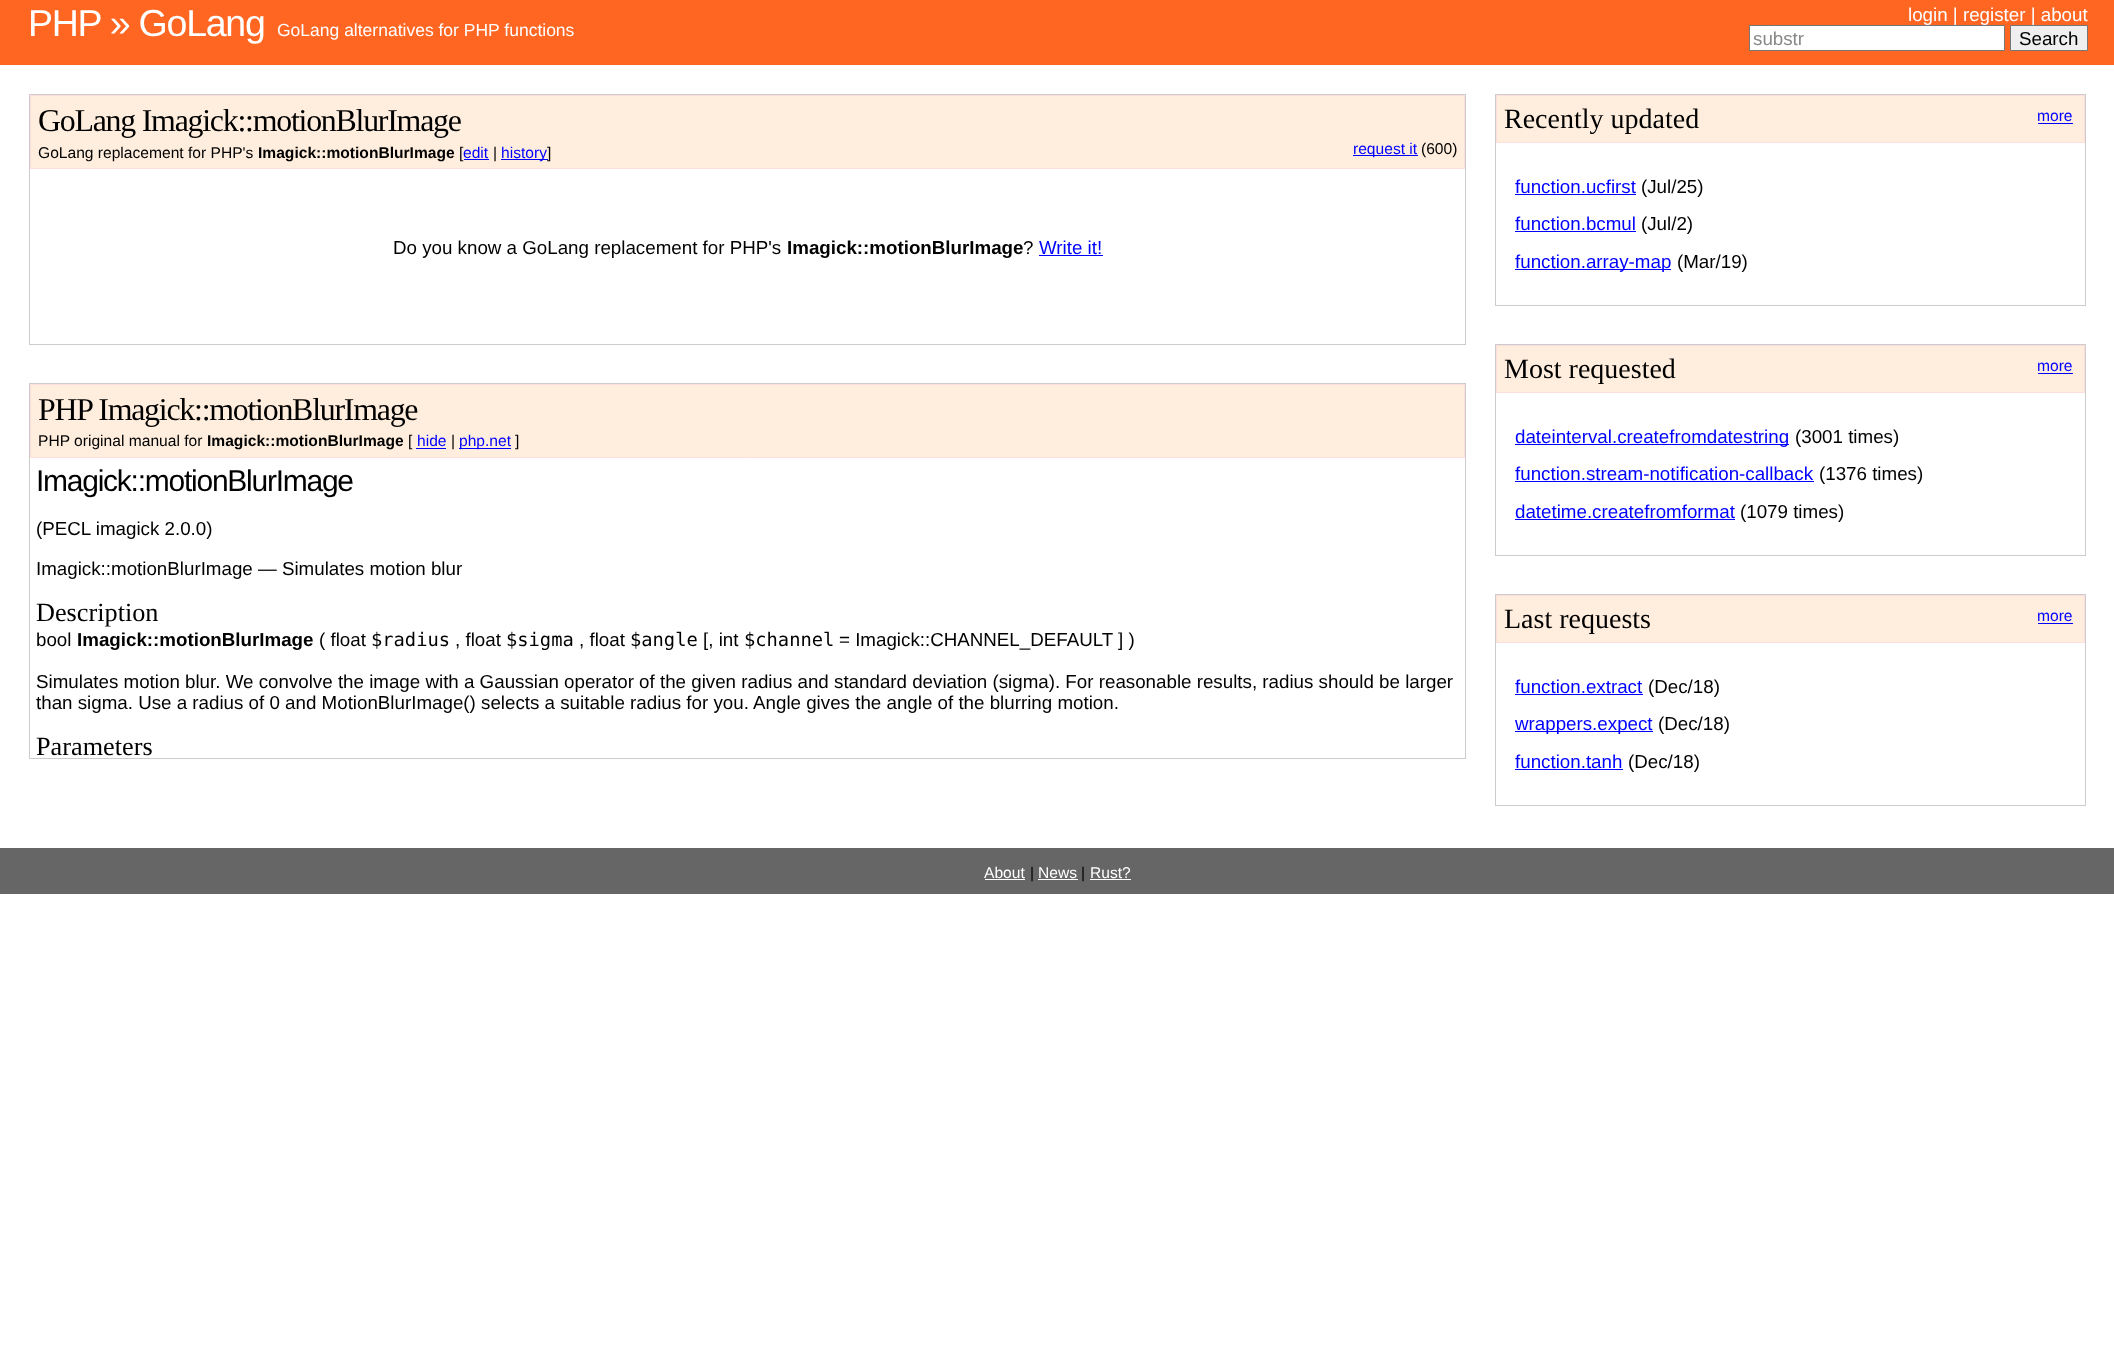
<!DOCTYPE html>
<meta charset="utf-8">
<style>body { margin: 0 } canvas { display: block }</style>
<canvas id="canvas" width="2114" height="1371"></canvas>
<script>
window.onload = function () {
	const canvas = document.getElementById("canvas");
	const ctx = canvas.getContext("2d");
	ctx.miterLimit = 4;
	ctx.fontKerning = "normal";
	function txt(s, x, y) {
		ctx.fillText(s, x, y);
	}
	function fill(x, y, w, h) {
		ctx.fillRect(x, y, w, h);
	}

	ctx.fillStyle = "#FFFFFF";
	fill(0, 0, 2114, 1371);
	ctx.fillStyle = "#FF6622";
	fill(0, 0, 2114, 65);
	ctx.fillStyle = "#FFFFFF";
	ctx.beginPath();
	ctx.rect(1749.5, 25.5, 255, 25);
	ctx.fill();
	ctx.strokeStyle = "#777777";
	ctx.stroke();
	ctx.fillStyle = "#EFEFEF";
	ctx.beginPath();
	ctx.rect(2010.5, 25.5, 77, 25);
	ctx.fill();
	ctx.stroke();
	ctx.strokeStyle = "#CCCCCC";
	ctx.strokeRect(29.5, 94.5, 1436, 250);
	ctx.fillStyle = "#FFEEDD";
	ctx.beginPath();
	ctx.rect(30.5, 95.5, 1434, 73);
	ctx.fill();
	ctx.strokeStyle = "#FFDDDD";
	ctx.stroke();
	ctx.fillStyle = "#0000FF";
	fill(464, 159, 25, 1);
	fill(501, 159, 47, 1);
	fill(1353, 155, 65, 1);
	fill(1039, 255, 64, 1);
	ctx.strokeStyle = "#CCCCCC";
	ctx.strokeRect(29.5, 383.5, 1436, 375);
	ctx.fillStyle = "#FFEEDD";
	ctx.beginPath();
	ctx.rect(30.5, 384.5, 1434, 73);
	ctx.fill();
	ctx.strokeStyle = "#FFDDDD";
	ctx.stroke();
	ctx.fillStyle = "#0000FF";
	fill(416, 448, 30, 1);
	fill(459, 448, 52, 1);
	ctx.strokeStyle = "#CCCCCC";
	ctx.strokeRect(1495.5, 94.5, 590, 211);
	ctx.fillStyle = "#FFEEDD";
	ctx.beginPath();
	ctx.rect(1496.5, 95.5, 588, 47);
	ctx.fill();
	ctx.strokeStyle = "#FFDDDD";
	ctx.stroke();
	ctx.fillStyle = "#0000FF";
	fill(2038, 123, 35, 1);
	fill(1515, 194, 121, 1);
	fill(1515, 231, 121, 1);
	fill(1515, 269, 156, 1);
	ctx.strokeStyle = "#CCCCCC";
	ctx.strokeRect(1495.5, 344.5, 590, 211);
	ctx.fillStyle = "#FFEEDD";
	ctx.beginPath();
	ctx.rect(1496.5, 345.5, 588, 47);
	ctx.fill();
	ctx.strokeStyle = "#FFDDDD";
	ctx.stroke();
	ctx.fillStyle = "#0000FF";
	fill(2038, 373, 35, 1);
	fill(1515, 444, 274, 1);
	fill(1515, 481, 299, 1);
	fill(1515, 519, 220, 1);
	ctx.strokeStyle = "#CCCCCC";
	ctx.strokeRect(1495.5, 594.5, 590, 211);
	ctx.fillStyle = "#FFEEDD";
	ctx.beginPath();
	ctx.rect(1496.5, 595.5, 588, 47);
	ctx.fill();
	ctx.strokeStyle = "#FFDDDD";
	ctx.stroke();
	ctx.fillStyle = "#0000FF";
	fill(2038, 623, 35, 1);
	fill(1515, 694, 128, 1);
	fill(1515, 731, 138, 1);
	fill(1515, 769, 108, 1);
	ctx.fillStyle = "#666666";
	fill(0, 848, 2114, 46);
	ctx.fillStyle = "#FFFFFF";
	fill(985, 879, 40, 1);
	fill(1038, 879, 40, 1);
	fill(1090, 879, 41, 1);
	ctx.letterSpacing = "-1.25px";
	ctx.font = "37.5px Liberation Sans";
	txt("PHP » GoLang", 28, 36);
	ctx.letterSpacing = "0px";
	ctx.font = "17.5px Liberation Sans";
	txt("GoLang alternatives for PHP functions", 277, 36);
	ctx.font = "18.75px Liberation Sans";
	txt("login | register | about", 1908, 21);
	ctx.fillStyle = "#888888";
	txt("substr", 1753, 45);
	ctx.fillStyle = "#000000";
	txt("Search", 2019, 45);
	ctx.letterSpacing = "-1.25px";
	ctx.font = "31.9px Liberation Serif";
	txt("GoLang Imagick::motionBlurImage", 38, 131);
	ctx.letterSpacing = "0px";
	ctx.font = "15.6px Liberation Sans";
	txt("GoLang replacement for PHP's", 38, 158);
	ctx.font = "bold 15.6px Liberation Sans";
	txt("Imagick::motionBlurImage", 258, 158);
	ctx.font = "15.6px Liberation Sans";
	txt("[", 459, 158);
	ctx.fillStyle = "#0000FF";
	txt("edit", 463, 158);
	ctx.fillStyle = "#000000";
	txt("|", 493, 158);
	ctx.fillStyle = "#0000FF";
	txt("history", 501, 158);
	ctx.fillStyle = "#000000";
	txt("]", 547, 158);
	ctx.fillStyle = "#0000FF";
	txt("request it", 1353, 154);
	ctx.fillStyle = "#000000";
	txt("(600)", 1421, 154);
	ctx.font = "18.75px Liberation Sans";
	txt("Do you know a GoLang replacement for PHP's", 393, 254);
	ctx.font = "bold 18.75px Liberation Sans";
	txt("Imagick::motionBlurImage", 787, 254);
	ctx.font = "18.75px Liberation Sans";
	txt("?", 1023, 254);
	ctx.fillStyle = "#0000FF";
	txt("Write it!", 1039, 254);
	ctx.letterSpacing = "-1.25px";
	ctx.font = "31.9px Liberation Serif";
	ctx.fillStyle = "#000000";
	txt("PHP Imagick::motionBlurImage", 38, 420);
	ctx.letterSpacing = "0px";
	ctx.font = "15.6px Liberation Sans";
	txt("PHP original manual for", 38, 446);
	ctx.font = "bold 15.6px Liberation Sans";
	txt("Imagick::motionBlurImage", 207, 446);
	ctx.font = "15.6px Liberation Sans";
	txt("[", 408, 446);
	ctx.fillStyle = "#0000FF";
	txt("hide", 417, 446);
	ctx.fillStyle = "#000000";
	txt("|", 451, 446);
	ctx.fillStyle = "#0000FF";
	txt("php.net", 459, 446);
	ctx.fillStyle = "#000000";
	txt("]", 515, 446);
	ctx.letterSpacing = "-1.25px";
	ctx.font = "30px Liberation Sans";
	txt("Imagick::motionBlurImage", 36, 491);
	ctx.letterSpacing = "0px";
	ctx.font = "18.75px Liberation Sans";
	txt("(PECL imagick 2.0.0)", 36, 535);
	txt("Imagick::motionBlurImage — Simulates motion blur", 36, 575);
	ctx.font = "26.25px Liberation Serif";
	txt("Description", 36, 621);
	ctx.font = "18.75px Liberation Sans";
	txt("bool", 36, 646);
	ctx.font = "bold 18.75px Liberation Sans";
	txt("Imagick::motionBlurImage", 77, 646);
	ctx.font = "18.75px Liberation Sans";
	txt("( float", 319, 646);
	ctx.font = "18.75px DejaVu Sans Mono";
	txt("$radius", 371, 646);
	ctx.font = "18.75px Liberation Sans";
	txt(", float", 455, 646);
	ctx.font = "18.75px DejaVu Sans Mono";
	txt("$sigma", 506, 646);
	ctx.font = "18.75px Liberation Sans";
	txt(", float", 579, 646);
	ctx.font = "18.75px DejaVu Sans Mono";
	txt("$angle", 630, 646);
	ctx.font = "18.75px Liberation Sans";
	txt("[, int", 703, 646);
	ctx.font = "18.75px DejaVu Sans Mono";
	txt("$channel", 744, 646);
	ctx.font = "18.75px Liberation Sans";
	txt("= Imagick::CHANNEL_DEFAULT", 839, 646);
	txt("] )", 1118, 646);
	txt("Simulates motion blur. We convolve the image with a Gaussian operator of the given radius and standard deviation (sigma). For reasonable results, radius should be larger", 36, 688);
	txt("than sigma. Use a radius of 0 and MotionBlurImage() selects a suitable radius for you. Angle gives the angle of the blurring motion.", 36, 709);
	ctx.font = "26.25px Liberation Serif";
	txt("Parameters", 36, 755);
	ctx.font = "28px Liberation Serif";
	txt("Recently updated", 1504, 128);
	ctx.font = "15.6px Liberation Sans";
	ctx.fillStyle = "#0000FF";
	txt("more", 2037, 121);
	ctx.font = "18.75px Liberation Sans";
	txt("function.ucfirst", 1515, 193);
	ctx.fillStyle = "#000000";
	txt("(Jul/25)", 1641, 193);
	ctx.fillStyle = "#0000FF";
	txt("function.bcmul", 1515, 230);
	ctx.fillStyle = "#000000";
	txt("(Jul/2)", 1641, 230);
	ctx.fillStyle = "#0000FF";
	txt("function.array-map", 1515, 268);
	ctx.fillStyle = "#000000";
	txt("(Mar/19)", 1677, 268);
	ctx.font = "28px Liberation Serif";
	txt("Most requested", 1504, 378);
	ctx.font = "15.6px Liberation Sans";
	ctx.fillStyle = "#0000FF";
	txt("more", 2037, 371);
	ctx.font = "18.75px Liberation Sans";
	txt("dateinterval.createfromdatestring", 1515, 443);
	ctx.fillStyle = "#000000";
	txt("(3001 times)", 1795, 443);
	ctx.fillStyle = "#0000FF";
	txt("function.stream-notification-callback", 1515, 480);
	ctx.fillStyle = "#000000";
	txt("(1376 times)", 1819, 480);
	ctx.fillStyle = "#0000FF";
	txt("datetime.createfromformat", 1515, 518);
	ctx.fillStyle = "#000000";
	txt("(1079 times)", 1740, 518);
	ctx.font = "28px Liberation Serif";
	txt("Last requests", 1504, 628);
	ctx.font = "15.6px Liberation Sans";
	ctx.fillStyle = "#0000FF";
	txt("more", 2037, 621);
	ctx.font = "18.75px Liberation Sans";
	txt("function.extract", 1515, 693);
	ctx.fillStyle = "#000000";
	txt("(Dec/18)", 1648, 693);
	ctx.fillStyle = "#0000FF";
	txt("wrappers.expect", 1515, 730);
	ctx.fillStyle = "#000000";
	txt("(Dec/18)", 1658, 730);
	ctx.fillStyle = "#0000FF";
	txt("function.tanh", 1515, 768);
	ctx.fillStyle = "#000000";
	txt("(Dec/18)", 1628, 768);
	ctx.font = "15.6px Liberation Sans";
	ctx.fillStyle = "#FFFFFF";
	txt("About", 984, 878);
	ctx.fillStyle = "#000000";
	txt("|", 1030, 878);
	ctx.fillStyle = "#FFFFFF";
	txt("News", 1038, 878);
	ctx.fillStyle = "#000000";
	txt("|", 1081, 878);
	ctx.fillStyle = "#FFFFFF";
	txt("Rust?", 1090, 878);
};
</script>
